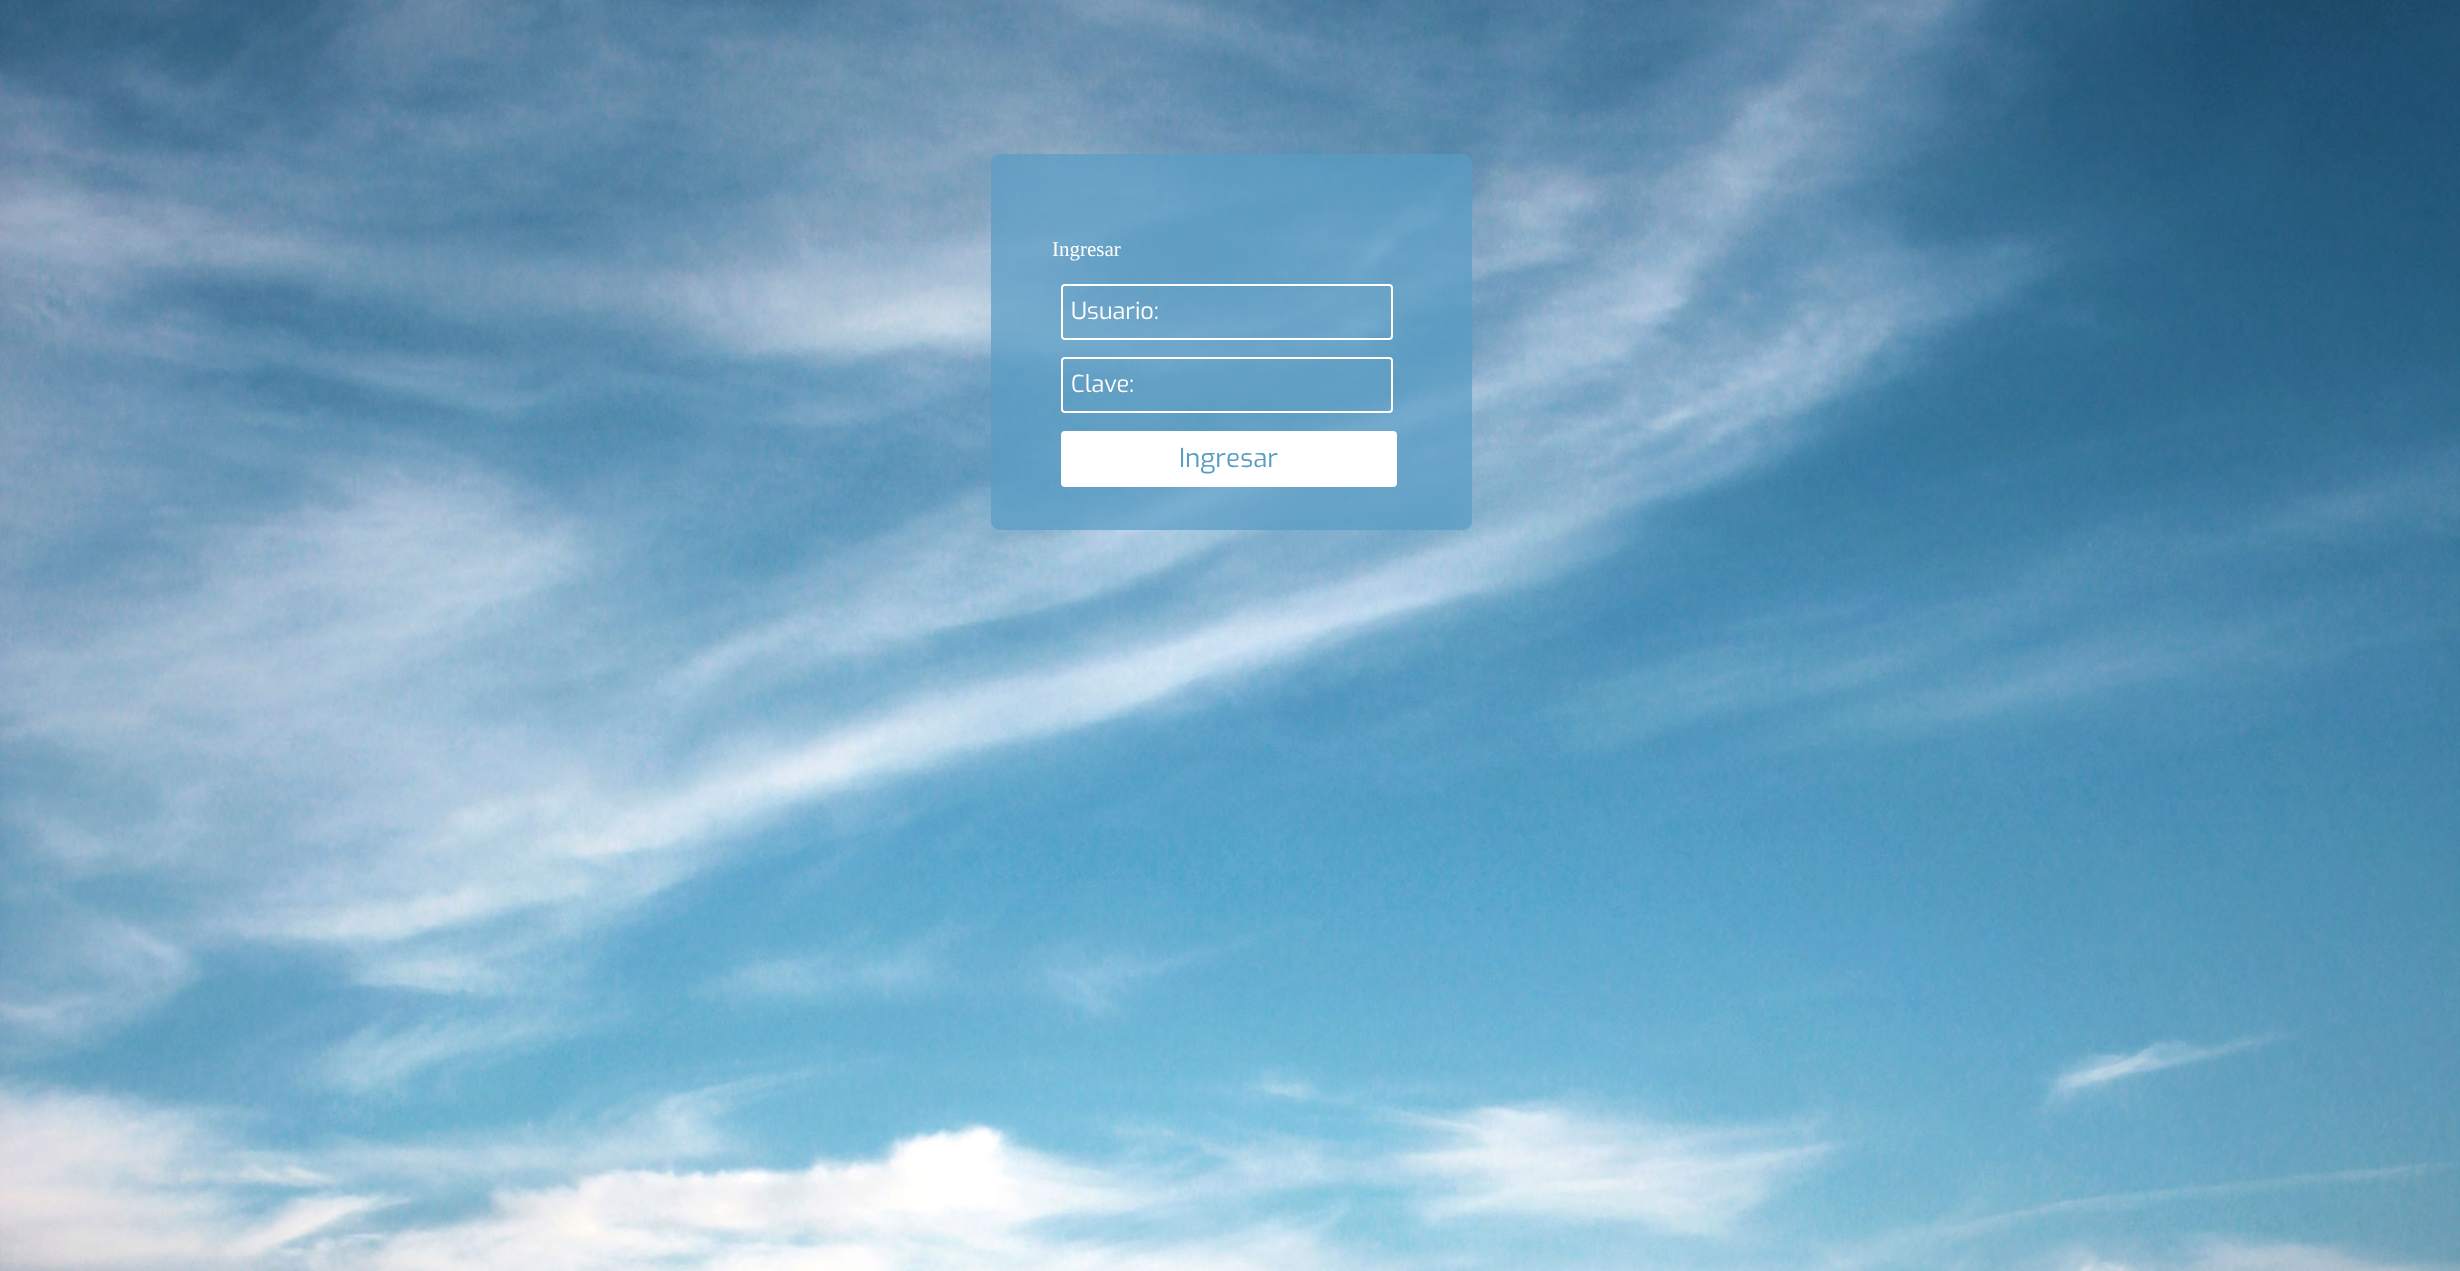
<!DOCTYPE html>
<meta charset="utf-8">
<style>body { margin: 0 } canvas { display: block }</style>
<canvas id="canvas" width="2460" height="1271"></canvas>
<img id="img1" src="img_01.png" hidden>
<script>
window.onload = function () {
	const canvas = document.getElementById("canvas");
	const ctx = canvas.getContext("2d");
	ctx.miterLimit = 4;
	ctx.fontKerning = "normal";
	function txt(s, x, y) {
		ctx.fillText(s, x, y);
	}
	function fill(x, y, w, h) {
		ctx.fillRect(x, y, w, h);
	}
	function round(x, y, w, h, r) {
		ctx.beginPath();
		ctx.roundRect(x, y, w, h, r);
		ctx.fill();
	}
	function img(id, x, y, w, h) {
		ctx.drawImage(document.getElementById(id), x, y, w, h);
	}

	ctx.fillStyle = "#FFFFFF";
	fill(0, 0, 2460, 1271);
	img("img1", 0, 0, 2460, 1271);
	ctx.fillStyle = "rgba(88, 157, 196, 0.7)";
	round(991, 154, 481, 376, 9);
	ctx.beginPath();
	ctx.roundRect(1062, 285, 330, 54, 3);
	ctx.strokeStyle = "#FFFFFF";
	ctx.lineWidth = 2;
	ctx.stroke();
	ctx.beginPath();
	ctx.roundRect(1062, 358, 330, 54, 3);
	ctx.stroke();
	ctx.fillStyle = "#FFFFFF";
	ctx.beginPath();
	ctx.roundRect(1062, 432, 334, 54, 3);
	ctx.fill();
	ctx.stroke();
	ctx.font = "21px Liberation Serif";
	txt("Ingresar", 1052, 256);
	ctx.font = "23.5px Exo";
	txt("Usuario:", 1071, 319);
	txt("Clave:", 1071, 392);
	ctx.font = "26px Exo";
	ctx.fillStyle = "#589DC4";
	txt("Ingresar", 1179, 467);
};
</script>
